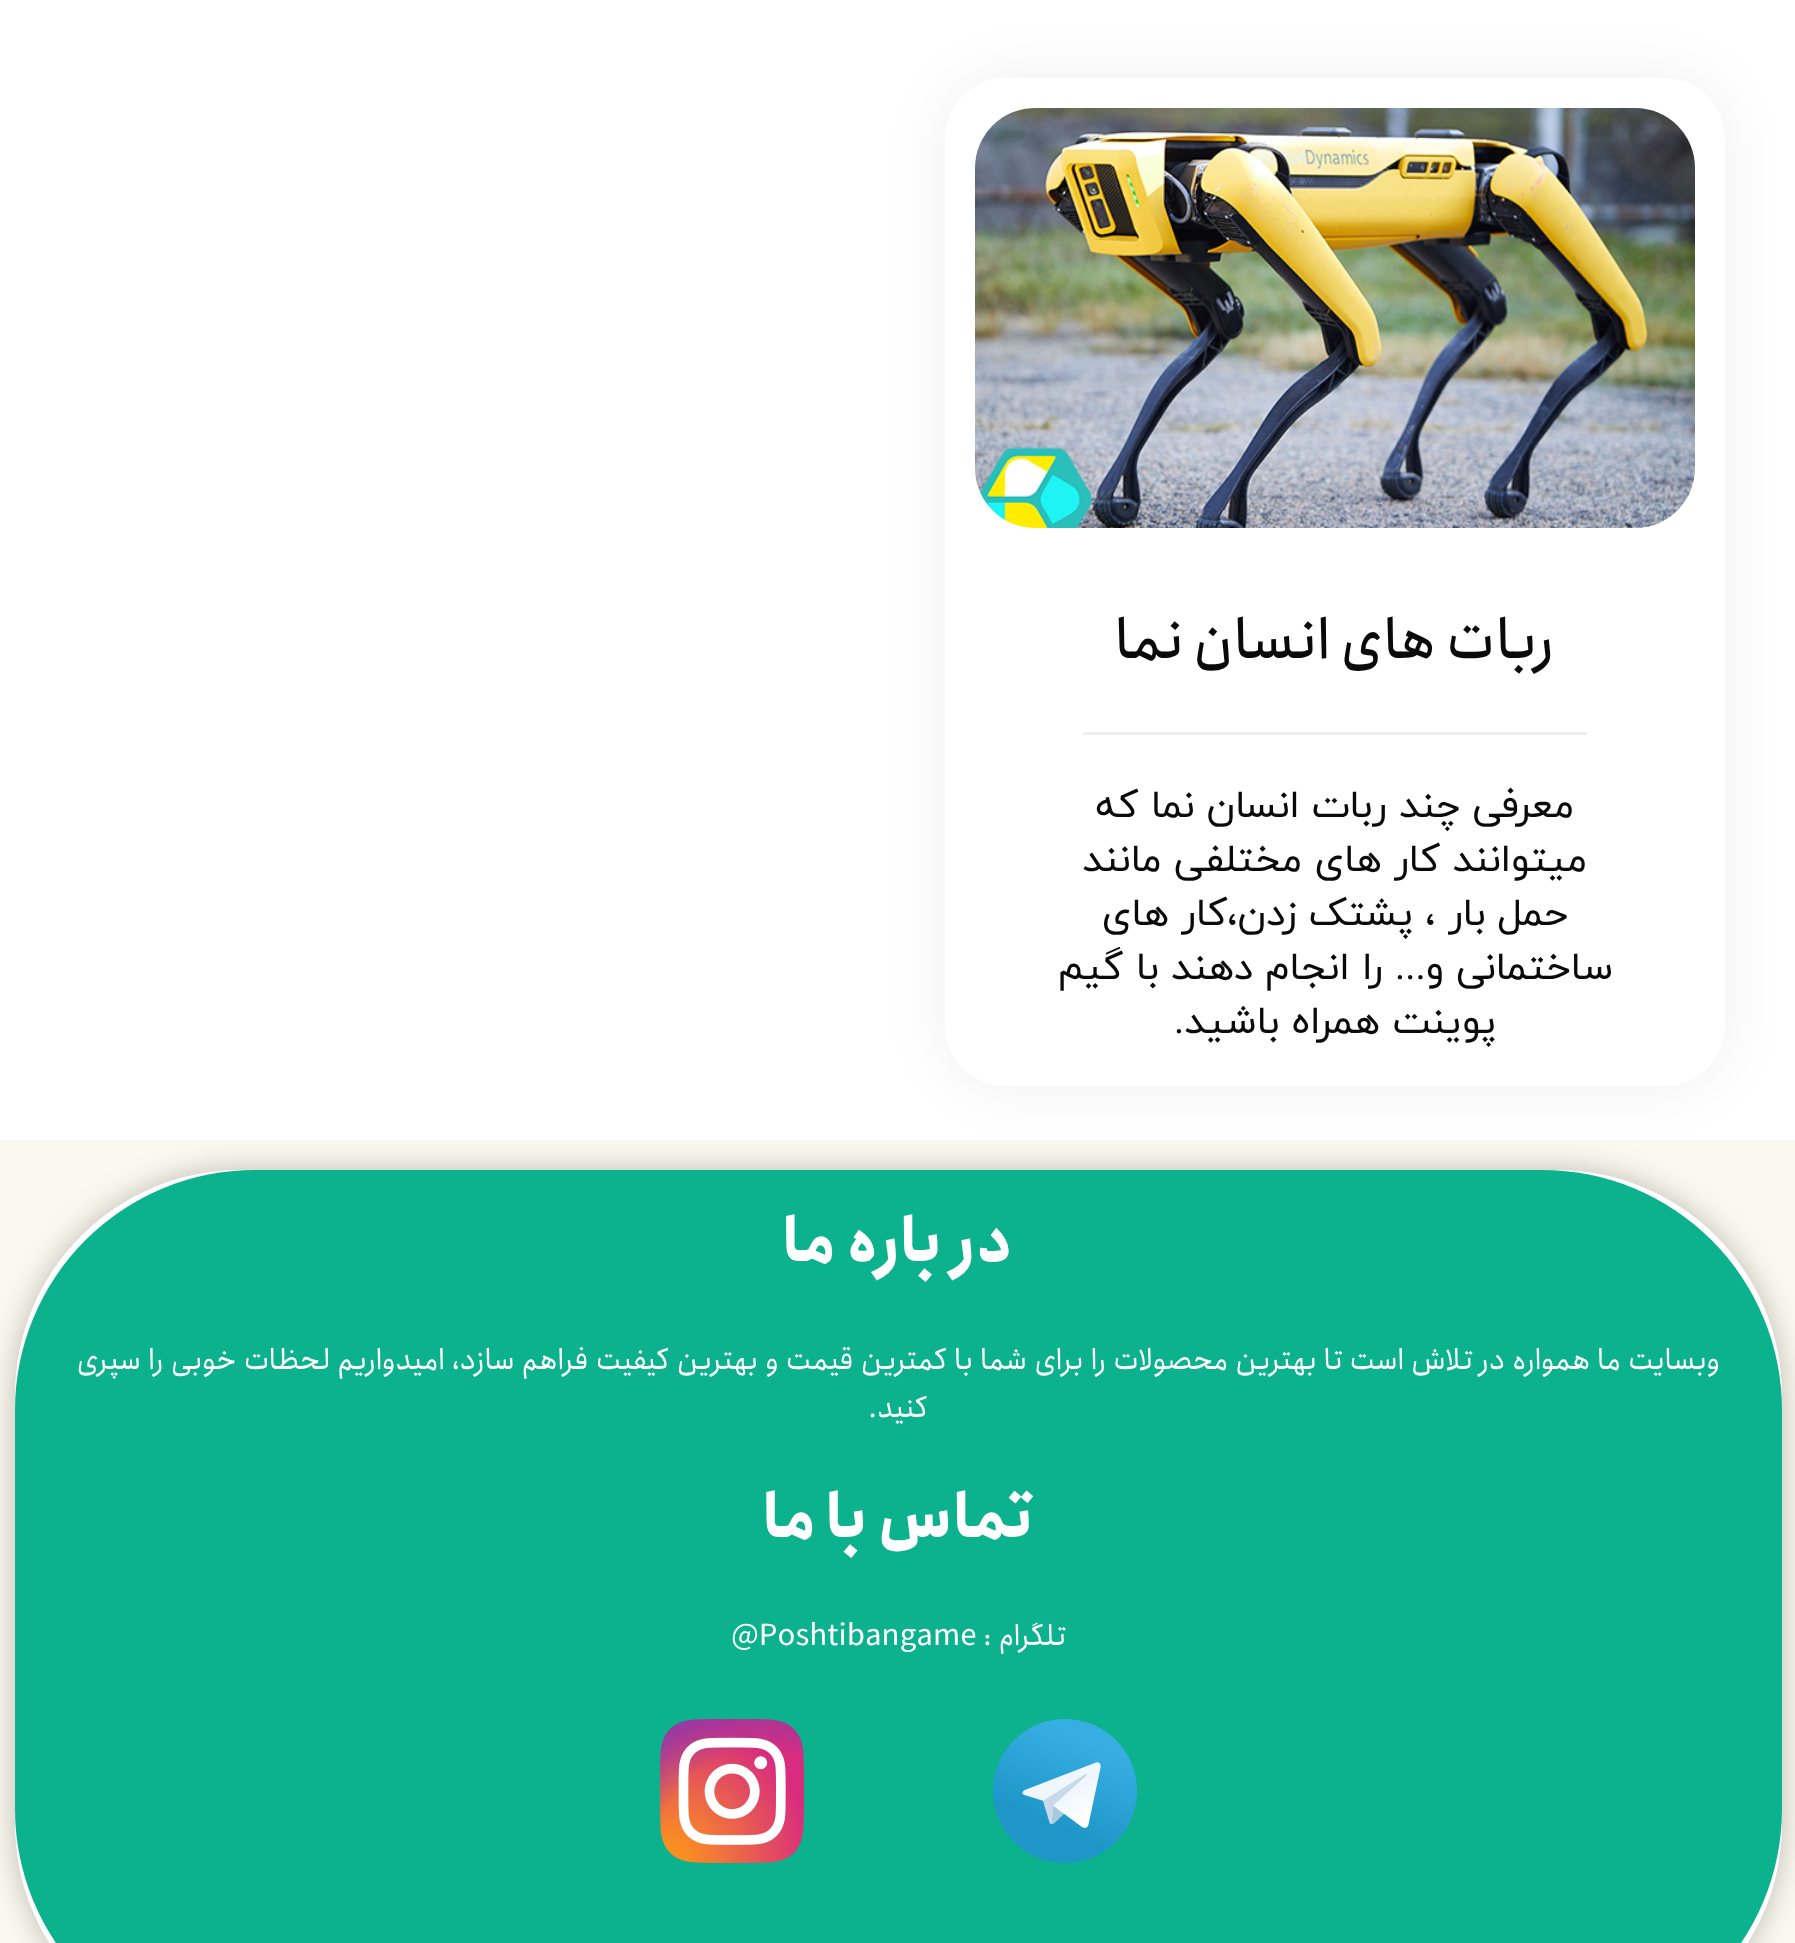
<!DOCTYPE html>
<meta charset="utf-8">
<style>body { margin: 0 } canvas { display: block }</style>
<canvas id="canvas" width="1795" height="1943"></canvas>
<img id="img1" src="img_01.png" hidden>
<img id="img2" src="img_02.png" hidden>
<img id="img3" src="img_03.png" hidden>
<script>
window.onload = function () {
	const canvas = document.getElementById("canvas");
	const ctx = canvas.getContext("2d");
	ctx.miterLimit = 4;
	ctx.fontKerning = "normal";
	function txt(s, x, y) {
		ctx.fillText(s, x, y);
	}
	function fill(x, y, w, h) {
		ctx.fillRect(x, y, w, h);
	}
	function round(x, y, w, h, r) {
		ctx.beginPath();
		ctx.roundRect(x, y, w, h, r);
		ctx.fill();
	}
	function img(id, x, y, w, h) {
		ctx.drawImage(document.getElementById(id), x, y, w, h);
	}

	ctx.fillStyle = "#FFFFFF";
	fill(0, 0, 1795, 1943);
	ctx.fillStyle = "rgba(0, 0, 0, 0.06)";
	ctx.filter = "blur(30px)";
	ctx.beginPath();
	ctx.roundRect(945, 78, 780, 1008, 60);
	ctx.fill();
	ctx.filter = "none";
	ctx.fillStyle = "#FFFFFF";
	round(945, 78, 780, 1008, 60);
	img("img1", 975, 108, 720, 420);
	ctx.fillStyle = "#EEEEEE";
	fill(1083, 732, 504, 3);
	ctx.fillStyle = "#FBF8EF";
	fill(0, 1140, 1795, 803);
	ctx.fillStyle = "rgba(0, 0, 0, 0.24)";
	ctx.filter = "blur(15px)";
	ctx.beginPath();
	ctx.roundRect(15, 1170, 1767, 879, 225);
	ctx.fill();
	ctx.filter = "none";
	ctx.fillStyle = "#FFFFFF";
	round(15, 1170, 1767, 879, 225);
	ctx.fillStyle = "#0CB18E";
	round(15, 1170, 1767, 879, 240);
	img("img2", 993, 1719, 144, 144);
	img("img3", 660, 1719, 144, 144);
	ctx.direction = "rtl";
	ctx.font = "500 57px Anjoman";
	ctx.fillStyle = "#0A0A0A";
	txt("ربات های انسان نما", 1555, 658);
	ctx.font = "39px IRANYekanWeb";
	txt("معرفی چند ربات انسان نما که", 1574, 817);
	txt("میتوانند کار های مختلفی مانند", 1587, 871);
	txt("حمل بار ، پشتک زدن،کار های", 1568, 925);
	txt("ساختمانی و... را انجام دهند با گیم", 1613, 979);
	txt("پوینت همراه باشید.", 1496, 1033);
	ctx.font = "800 60px Anjoman";
	ctx.fillStyle = "#FFFFFF";
	txt("در باره ما", 1014, 1261);
	ctx.font = "30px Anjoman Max";
	txt("وبسایت ما همواره در تلاش است تا بهترین محصولات را برای شما با کمترین قیمت و بهترین کیفیت فراهم سازد، امیدواریم لحظات خوبی را سپری", 1720, 1369);
	txt("کنید.", 928, 1417);
	ctx.font = "800 60px Anjoman";
	txt("تماس با ما", 1034, 1537);
	ctx.font = "30px Anjoman Max";
	txt("تلگرام :", 1066, 1645);
	ctx.direction = "ltr";
	txt("@Poshtibangame", 731, 1645);
};
</script>
